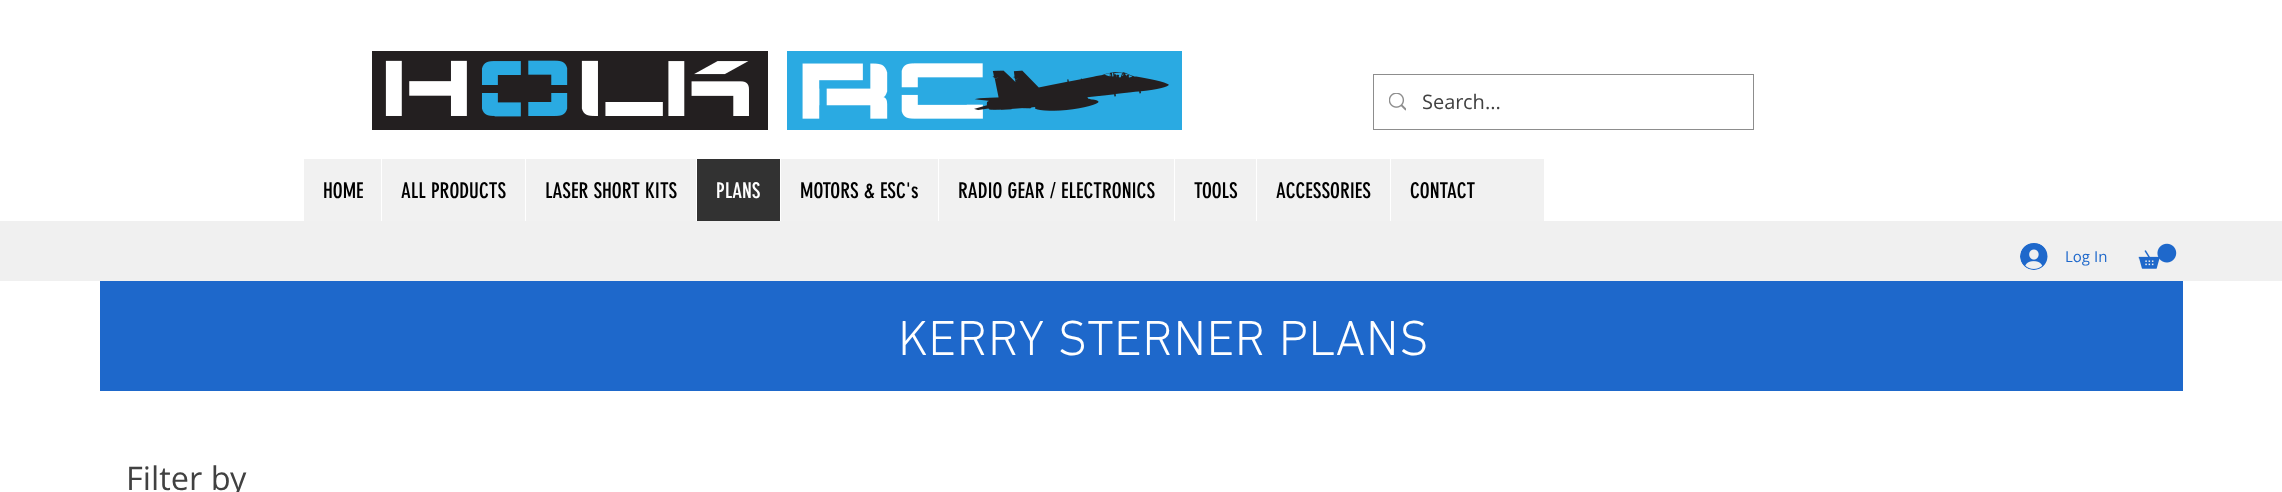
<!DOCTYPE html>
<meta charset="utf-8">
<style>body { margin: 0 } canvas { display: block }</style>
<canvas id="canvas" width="2282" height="492"></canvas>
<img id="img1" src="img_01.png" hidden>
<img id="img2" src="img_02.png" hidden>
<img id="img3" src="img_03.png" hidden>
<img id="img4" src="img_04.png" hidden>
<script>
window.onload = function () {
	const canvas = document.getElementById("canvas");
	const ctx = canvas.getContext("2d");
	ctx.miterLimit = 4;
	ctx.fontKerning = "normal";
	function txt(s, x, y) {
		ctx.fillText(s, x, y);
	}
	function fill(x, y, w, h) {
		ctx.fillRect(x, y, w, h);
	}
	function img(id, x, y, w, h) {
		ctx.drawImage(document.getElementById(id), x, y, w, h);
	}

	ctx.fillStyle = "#FFFFFF";
	fill(0, 0, 2282, 492);
	img("img1", 372, 51, 810, 79);
	ctx.strokeStyle = "#8D8D8D";
	ctx.strokeRect(1373.5, 74.5, 380, 55);
	img("img2", 1389, 93, 17, 18);
	ctx.fillStyle = "#F1F1F1";
	fill(304, 159, 1240, 62);
	ctx.fillStyle = "#FFFFFF";
	fill(381, 159, 1, 62);
	fill(525, 159, 1, 62);
	ctx.fillStyle = "#323232";
	fill(697, 159, 83, 62);
	ctx.fillStyle = "#FFFFFF";
	fill(696, 159, 1, 62);
	fill(780, 159, 1, 62);
	fill(938, 159, 1, 62);
	fill(1174, 159, 1, 62);
	fill(1256, 159, 1, 62);
	fill(1390, 159, 1, 62);
	ctx.fillStyle = "#F0F0F0";
	fill(0, 221, 2282, 60);
	img("img3", 2020, 243, 28, 27);
	img("img4", 2138, 243, 39, 26);
	ctx.fillStyle = "#1E68CB";
	fill(100, 281, 2083, 110);
	ctx.font = "20px Open Sans";
	ctx.fillStyle = "#414141";
	txt("Search...", 1422, 109);
	ctx.font = "21.25px 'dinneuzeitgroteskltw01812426'";
	ctx.fillStyle = "#000000";
	txt("HOME", 323, 198);
	txt("ALL PRODUCTS", 401, 198);
	txt("LASER SHORT KITS", 545, 198);
	ctx.fillStyle = "#FFFFFF";
	txt("PLANS", 716, 198);
	ctx.fillStyle = "#000000";
	txt("MOTORS & ESC's", 800, 198);
	txt("RADIO GEAR / ELECTRONICS", 958, 198);
	txt("TOOLS", 1194, 198);
	txt("ACCESSORIES", 1276, 198);
	txt("CONTACT", 1410, 198);
	ctx.font = "15px Open Sans";
	ctx.fillStyle = "#1E68CB";
	txt("Log In", 2065, 262);
	ctx.letterSpacing = "0.5px";
	ctx.font = "300 50px 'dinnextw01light'";
	ctx.fillStyle = "#FFFFFF";
	txt("KERRY STERNER PLANS", 898, 355);
	ctx.letterSpacing = "0px";
	ctx.font = "32.5px Open Sans";
	ctx.fillStyle = "#414141";
	txt("Filter by", 126, 490);
};
</script>
